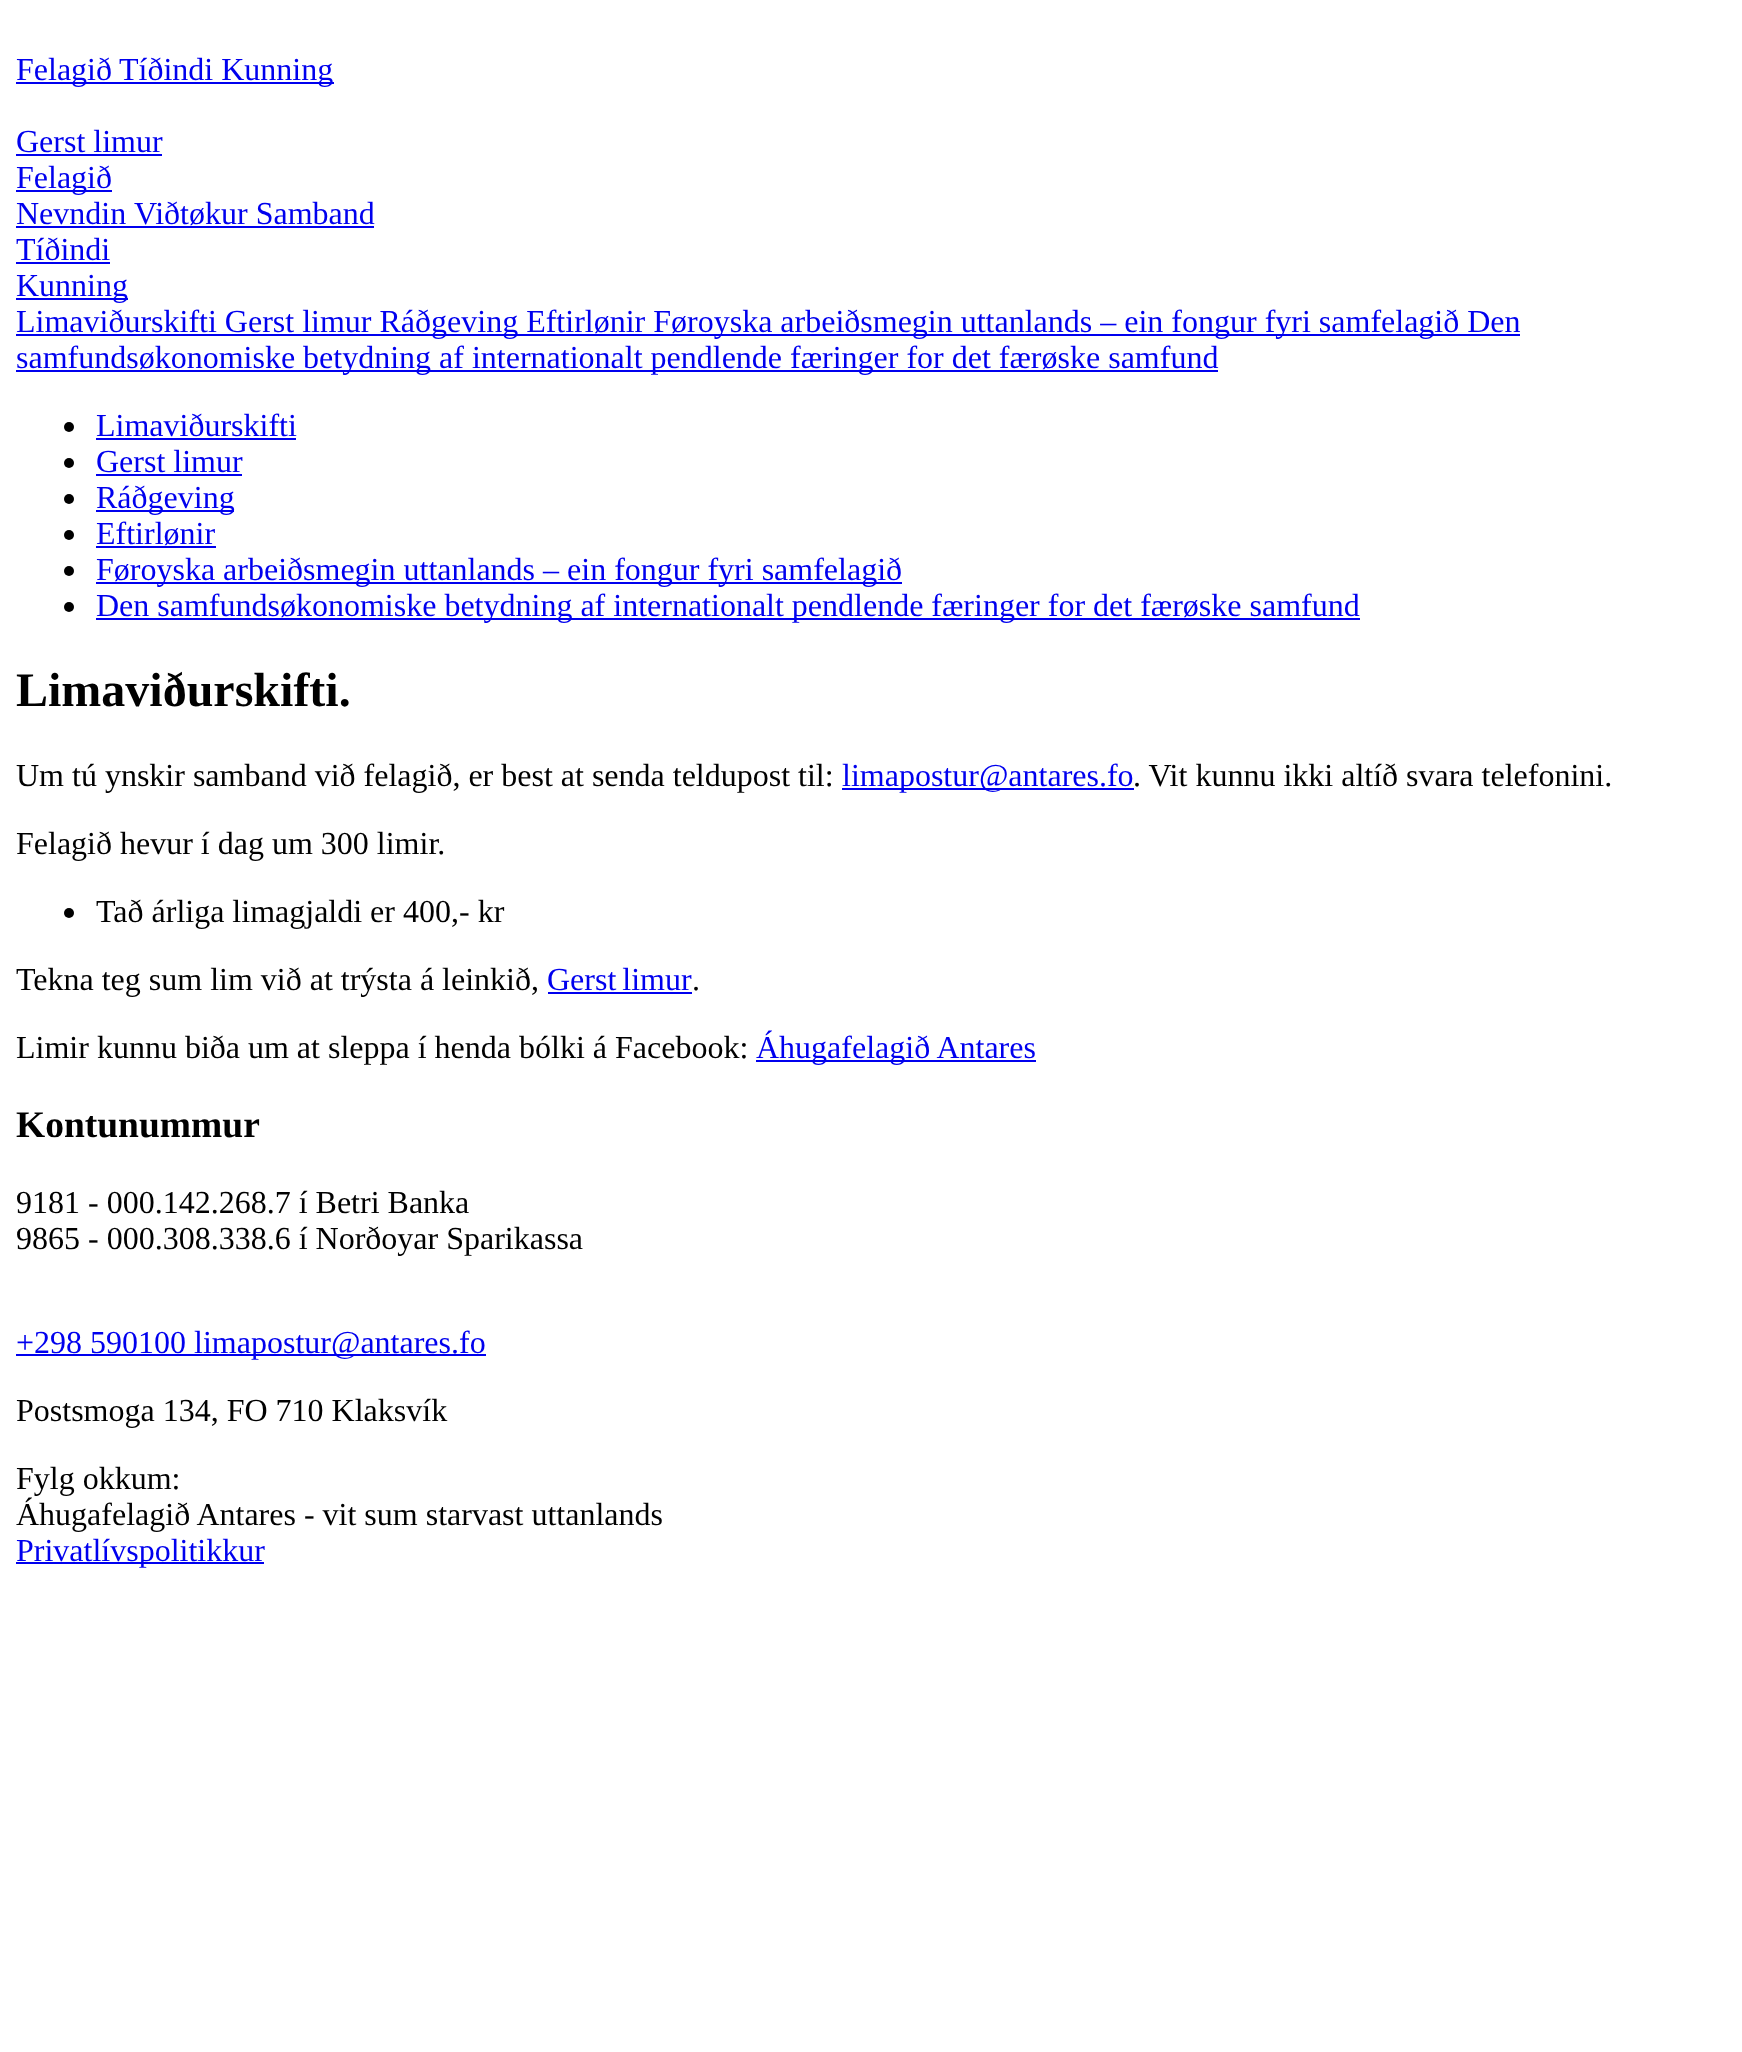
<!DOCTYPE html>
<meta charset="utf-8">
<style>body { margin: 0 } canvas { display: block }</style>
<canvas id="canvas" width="1742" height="2052"></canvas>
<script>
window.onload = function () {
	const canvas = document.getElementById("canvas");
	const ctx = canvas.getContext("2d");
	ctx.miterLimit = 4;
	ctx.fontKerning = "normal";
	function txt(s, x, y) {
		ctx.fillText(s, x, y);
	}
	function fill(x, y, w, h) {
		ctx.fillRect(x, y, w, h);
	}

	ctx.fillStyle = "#FFFFFF";
	fill(0, 0, 1742, 2052);
	ctx.fillStyle = "#0000EE";
	fill(16, 82, 318, 2);
	fill(16, 154, 146, 2);
	fill(16, 190, 96, 2);
	fill(16, 226, 358, 2);
	fill(16, 262, 94, 2);
	fill(16, 298, 112, 2);
	fill(16, 334, 1504, 2);
	fill(16, 370, 1202, 2);
	ctx.fillStyle = "#000000";
	ctx.beginPath();
	ctx.arc(69, 427, 5, 0, Math.PI * 2);
	ctx.fill();
	ctx.fillStyle = "#0000EE";
	fill(96, 438, 200, 2);
	ctx.fillStyle = "#000000";
	ctx.beginPath();
	ctx.arc(69, 463, 5, 0, Math.PI * 2);
	ctx.fill();
	ctx.fillStyle = "#0000EE";
	fill(96, 474, 146, 2);
	ctx.fillStyle = "#000000";
	ctx.beginPath();
	ctx.arc(69, 499, 5, 0, Math.PI * 2);
	ctx.fill();
	ctx.fillStyle = "#0000EE";
	fill(96, 510, 138, 2);
	ctx.fillStyle = "#000000";
	ctx.beginPath();
	ctx.arc(69, 535, 5, 0, Math.PI * 2);
	ctx.fill();
	ctx.fillStyle = "#0000EE";
	fill(96, 546, 120, 2);
	ctx.fillStyle = "#000000";
	ctx.beginPath();
	ctx.arc(69, 571, 5, 0, Math.PI * 2);
	ctx.fill();
	ctx.fillStyle = "#0000EE";
	fill(96, 582, 806, 2);
	ctx.fillStyle = "#000000";
	ctx.beginPath();
	ctx.arc(69, 607, 5, 0, Math.PI * 2);
	ctx.fill();
	ctx.fillStyle = "#0000EE";
	fill(96, 618, 1264, 2);
	fill(842, 788, 292, 2);
	ctx.fillStyle = "#000000";
	ctx.beginPath();
	ctx.arc(69, 913, 5, 0, Math.PI * 2);
	ctx.fill();
	ctx.fillStyle = "#0000EE";
	fill(548, 992, 144, 2);
	fill(756, 1060, 280, 2);
	fill(16, 1354, 470, 2);
	fill(16, 1562, 248, 2);
	ctx.font = "32px Liberation Serif";
	txt("Felagið", 16, 80);
	txt("Tíðindi Kunning", 119, 80);
	txt("Gerst limur", 16, 152);
	txt("Felagið", 16, 188);
	txt("Nevndin", 16, 224);
	txt("Viðtøkur Samband", 134, 224);
	txt("Tíðindi", 16, 260);
	txt("Kunning", 16, 296);
	txt("Limaviðurskifti Gerst limur Ráðgeving Eftirlønir Føroyska arbeiðsmegin uttanlands – ein fongur fyri samfelagið Den", 16, 332);
	txt("samfundsøkonomiske betydning af internationalt pendlende færinger for det færøske samfund", 16, 368);
	txt("Limaviðurskifti", 96, 436);
	txt("Gerst limur", 96, 472);
	txt("Ráðgeving", 96, 508);
	txt("Eftirlønir", 96, 544);
	txt("Føroyska arbeiðsmegin uttanlands – ein fongur fyri samfelagið", 96, 580);
	txt("Den samfundsøkonomiske betydning af internationalt pendlende færinger for det færøske samfund", 96, 616);
	ctx.font = "bold 48px Liberation Serif";
	ctx.fillStyle = "#000000";
	txt("Limaviðurskifti.", 16, 706);
	ctx.font = "32px Liberation Serif";
	txt("Um tú ynskir samband við felagið, er best at senda teldupost til:", 16, 786);
	ctx.fillStyle = "#0000EE";
	txt("limapostur@antares.fo", 842, 786);
	ctx.fillStyle = "#000000";
	txt(". Vit kunnu ikki altíð svara telefonini.", 1133, 786);
	txt("Felagið hevur í dag um 300 limir.", 16, 854);
	txt("Tað árliga limagjaldi er 400,- kr", 96, 922);
	txt("Tekna teg sum lim við at trýsta á leinkið,", 16, 990);
	ctx.wordSpacing = "-2px";
	ctx.fillStyle = "#0000EE";
	txt("Gerst limur", 547, 990);
	ctx.wordSpacing = "0px";
	ctx.fillStyle = "#000000";
	txt(".", 692, 990);
	txt("Limir kunnu biða um at sleppa í henda bólki á Facebook:", 16, 1058);
	ctx.fillStyle = "#0000EE";
	txt("Áhugafelagið Antares", 756, 1058);
	ctx.font = "bold 37.5px Liberation Serif";
	ctx.fillStyle = "#000000";
	txt("Kontunummur", 16, 1137);
	ctx.font = "32px Liberation Serif";
	txt("9181 - 000.142.268.7 í Betri Banka", 16, 1213);
	txt("9865 - 000.308.338.6 í Norðoyar Sparikassa", 16, 1249);
	ctx.fillStyle = "#0000EE";
	txt("+298 590100 limapostur@antares.fo", 16, 1353);
	ctx.fillStyle = "#000000";
	txt("Postsmoga 134, FO 710 Klaksvík", 16, 1421);
	txt("Fylg okkum:", 16, 1489);
	txt("Áhugafelagið Antares - vit sum starvast uttanlands", 16, 1525);
	ctx.fillStyle = "#0000EE";
	txt("Privatlívspolitikkur", 16, 1561);
};
</script>
